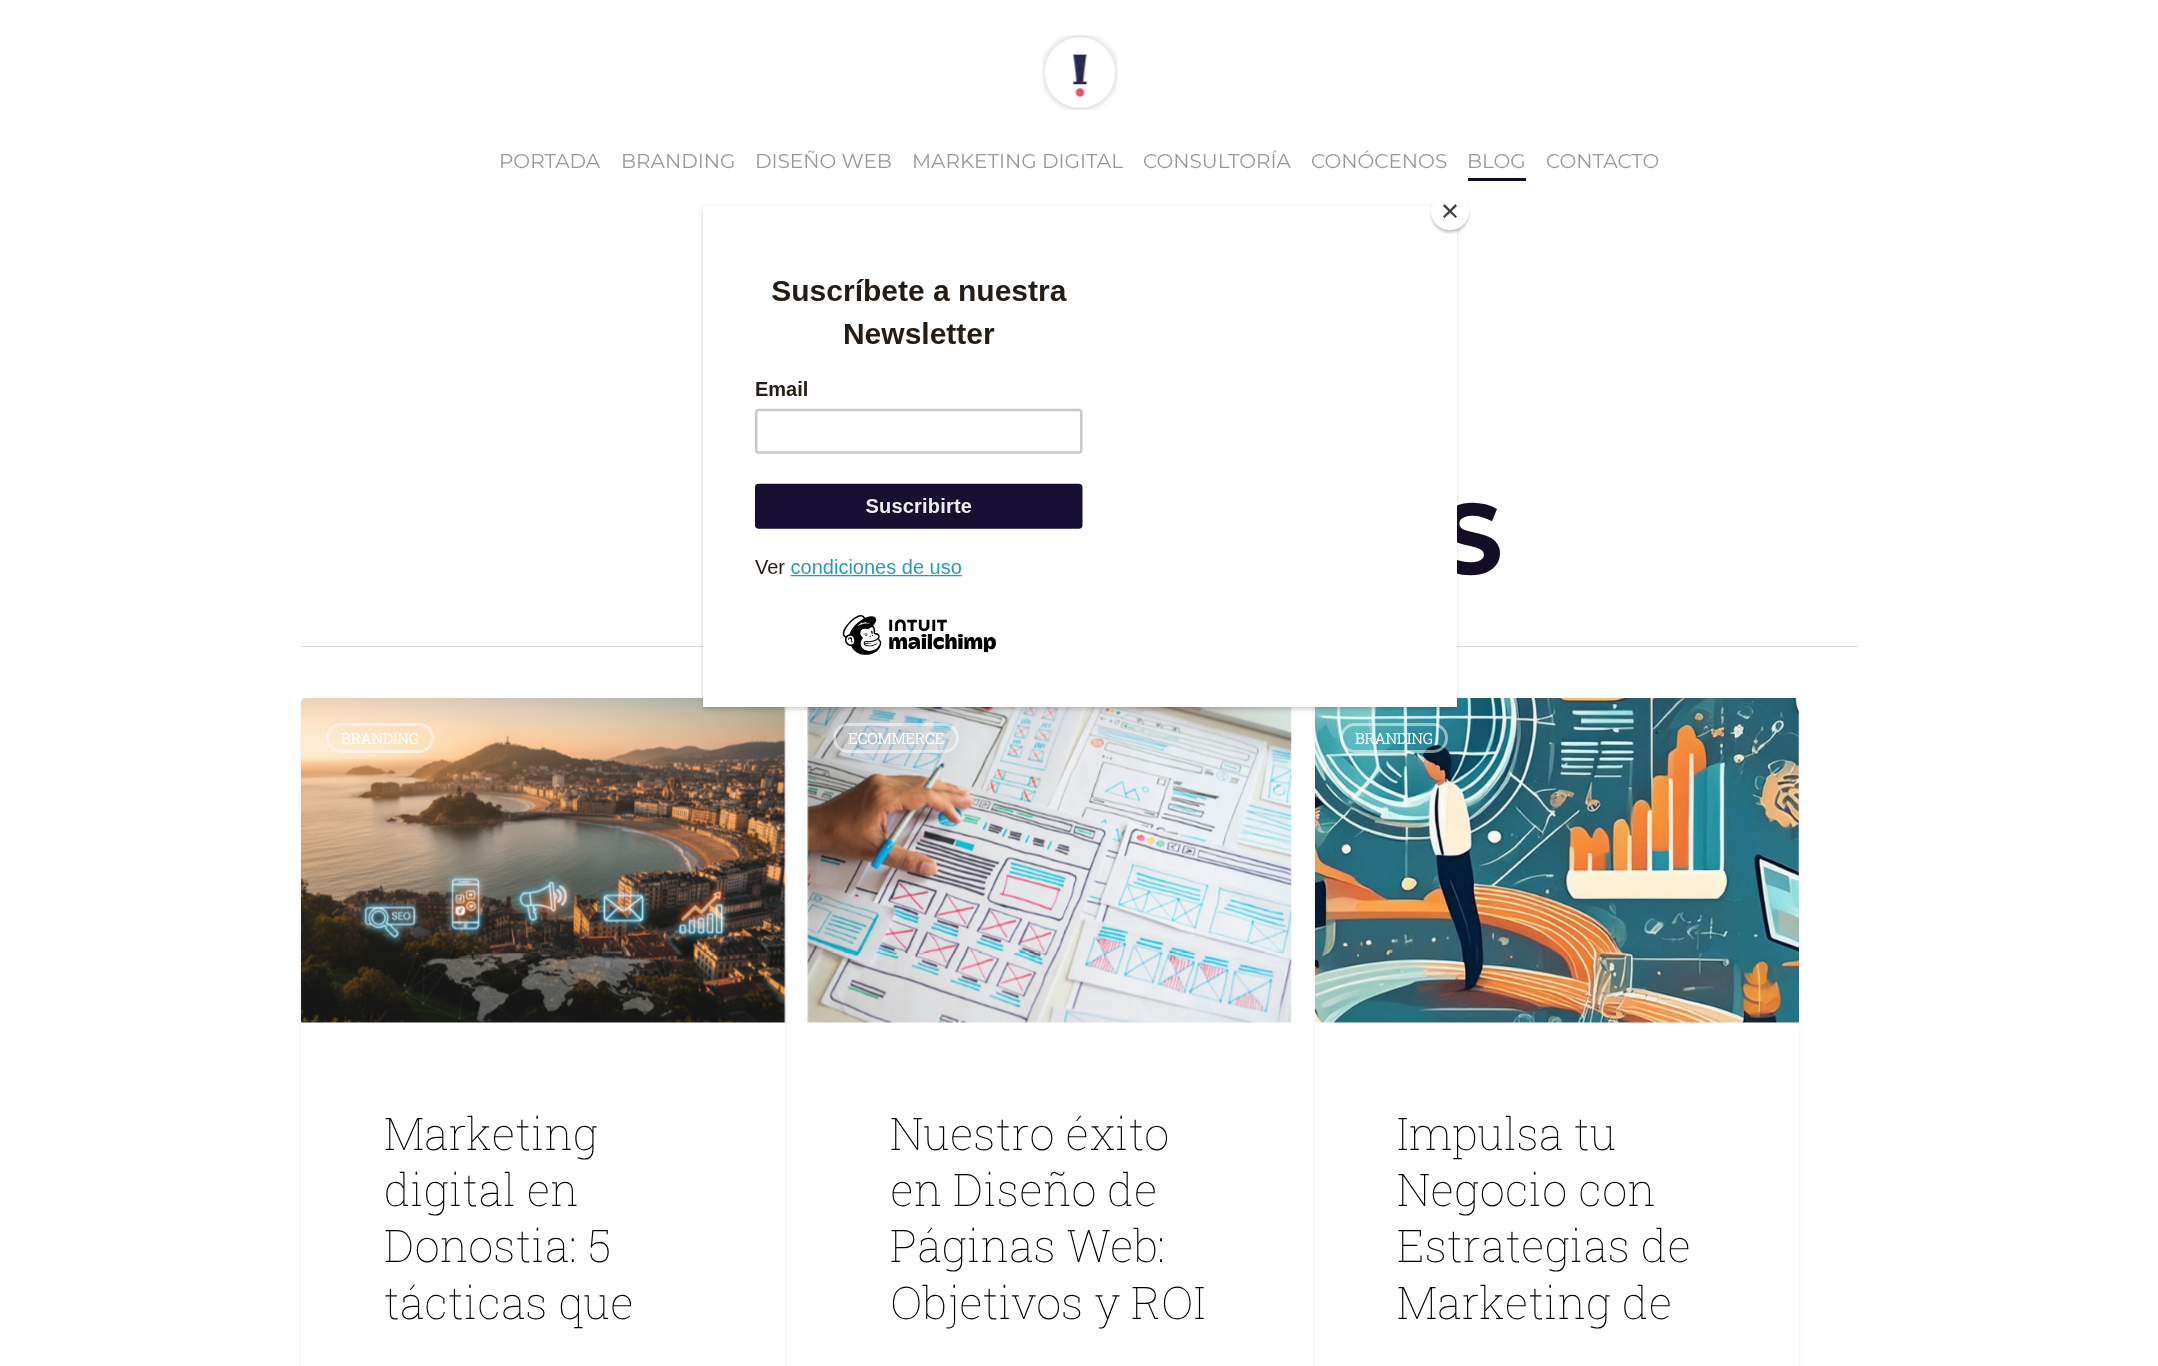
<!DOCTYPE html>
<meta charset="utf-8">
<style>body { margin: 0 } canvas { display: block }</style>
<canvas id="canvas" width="2158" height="1366"></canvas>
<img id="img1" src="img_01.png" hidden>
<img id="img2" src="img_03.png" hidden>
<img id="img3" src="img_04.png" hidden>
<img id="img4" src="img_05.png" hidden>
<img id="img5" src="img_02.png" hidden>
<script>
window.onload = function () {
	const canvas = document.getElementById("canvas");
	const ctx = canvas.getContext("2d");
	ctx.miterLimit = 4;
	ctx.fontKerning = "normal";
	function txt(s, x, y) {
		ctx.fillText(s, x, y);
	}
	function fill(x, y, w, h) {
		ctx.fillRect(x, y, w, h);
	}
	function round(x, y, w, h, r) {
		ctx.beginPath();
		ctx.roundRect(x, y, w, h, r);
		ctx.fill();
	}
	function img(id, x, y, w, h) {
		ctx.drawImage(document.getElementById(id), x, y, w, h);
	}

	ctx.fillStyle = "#FFFFFF";
	fill(0, 0, 2158, 1366);
	img("img1", 1042, 35, 76, 75);
	ctx.fillStyle = "#130E23";
	fill(1468, 178, 58, 3);
	ctx.fillStyle = "#D9D9D9";
	fill(301, 646, 1557, 1);
	ctx.fillStyle = "rgba(0, 0, 0, 0.08)";
	ctx.filter = "blur(2px)";
	ctx.beginPath();
	ctx.roundRect(301, 699, 484, 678, 5);
	ctx.fill();
	ctx.filter = "none";
	ctx.fillStyle = "#FFFFFF";
	round(301, 698, 484, 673, 5);
	img("img2", 301, 698, 485, 325);
	img("img3", 807, 707, 485, 316);
	ctx.fillStyle = "rgba(0, 0, 0, 0.08)";
	ctx.filter = "blur(2px)";
	ctx.beginPath();
	ctx.roundRect(1315, 699, 484, 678, 5);
	ctx.fill();
	ctx.filter = "none";
	ctx.fillStyle = "#FFFFFF";
	round(1315, 698, 484, 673, 5);
	img("img4", 1315, 698, 484, 325);
	ctx.fillStyle = "rgba(0, 0, 0, 0.2)";
	ctx.filter = "blur(2.5px)";
	ctx.beginPath();
	ctx.rect(703, 208, 753, 501);
	ctx.fill();
	ctx.filter = "none";
	ctx.beginPath();
	ctx.roundRect(327.5, 724.5, 105, 27, 13.5);
	ctx.strokeStyle = "rgba(255, 255, 255, 0.5)";
	ctx.lineWidth = 3;
	ctx.stroke();
	ctx.beginPath();
	ctx.roundRect(834.5, 724.5, 123, 27, 13.5);
	ctx.stroke();
	ctx.beginPath();
	ctx.roundRect(1341.5, 724.5, 105, 27, 13.5);
	ctx.stroke();
	ctx.font = "100 20px 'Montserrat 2'";
	ctx.fillStyle = "#999999";
	txt("PORTADA", 499, 168);
	txt("BRANDING", 621, 168);
	txt("DISEÑO WEB", 755, 168);
	txt("MARKETING DIGITAL", 912, 168);
	txt("CONSULTORÍA", 1143, 168);
	txt("CONÓCENOS", 1311, 168);
	txt("BLOG", 1467, 168);
	txt("CONTACTO", 1546, 168);
	ctx.font = "100 100px Montserrat";
	ctx.fillStyle = "#130E23";
	txt("S", 1439, 574);
	img("img5", 703, 206, 754, 501);
	ctx.fillStyle = "rgba(0, 0, 0, 0.2)";
	ctx.filter = "blur(1px)";
	ctx.beginPath();
	ctx.roundRect(1431, 195, 38, 38, 19);
	ctx.fill();
	ctx.filter = "none";
	ctx.fillStyle = "#FFFFFF";
	round(1431, 193, 38, 37, 18.5);
	ctx.fillStyle = "#414141";
	ctx.beginPath();
	ctx.moveTo(1455.5, 204);
	ctx.lineTo(1457, 206);
	ctx.lineTo(1444.5, 218);
	ctx.lineTo(1443, 216.5);
	ctx.closePath();
	ctx.fill();
	ctx.beginPath();
	ctx.moveTo(1443, 206);
	ctx.lineTo(1444.5, 204);
	ctx.lineTo(1457, 216.5);
	ctx.lineTo(1455.5, 218);
	ctx.closePath();
	ctx.fill();
	ctx.font = "bold 15px Roboto Slab";
	ctx.fillStyle = "#FFFFFF";
	txt("BRANDING", 341, 744);
	ctx.font = "100 45px Roboto Slab";
	ctx.fillStyle = "#000000";
	txt("Marketing", 384, 1150);
	txt("digital en", 384, 1206);
	txt("Donostia: 5", 384, 1262);
	txt("tácticas que", 384, 1319);
	ctx.font = "bold 15px Roboto Slab";
	ctx.fillStyle = "#FFFFFF";
	txt("ECOMMERCE", 848, 744);
	ctx.font = "100 45px Roboto Slab";
	ctx.fillStyle = "#000000";
	txt("Nuestro éxito", 890, 1150);
	txt("en Diseño de", 890, 1206);
	txt("Páginas Web:", 890, 1262);
	txt("Objetivos y ROI", 890, 1319);
	ctx.font = "bold 15px Roboto Slab";
	ctx.fillStyle = "#FFFFFF";
	txt("BRANDING", 1355, 744);
	ctx.font = "100 45px Roboto Slab";
	ctx.fillStyle = "#000000";
	txt("Impulsa tu", 1397, 1150);
	txt("Negocio con", 1397, 1206);
	txt("Estrategias de", 1397, 1262);
	txt("Marketing de", 1397, 1319);
};
</script>
